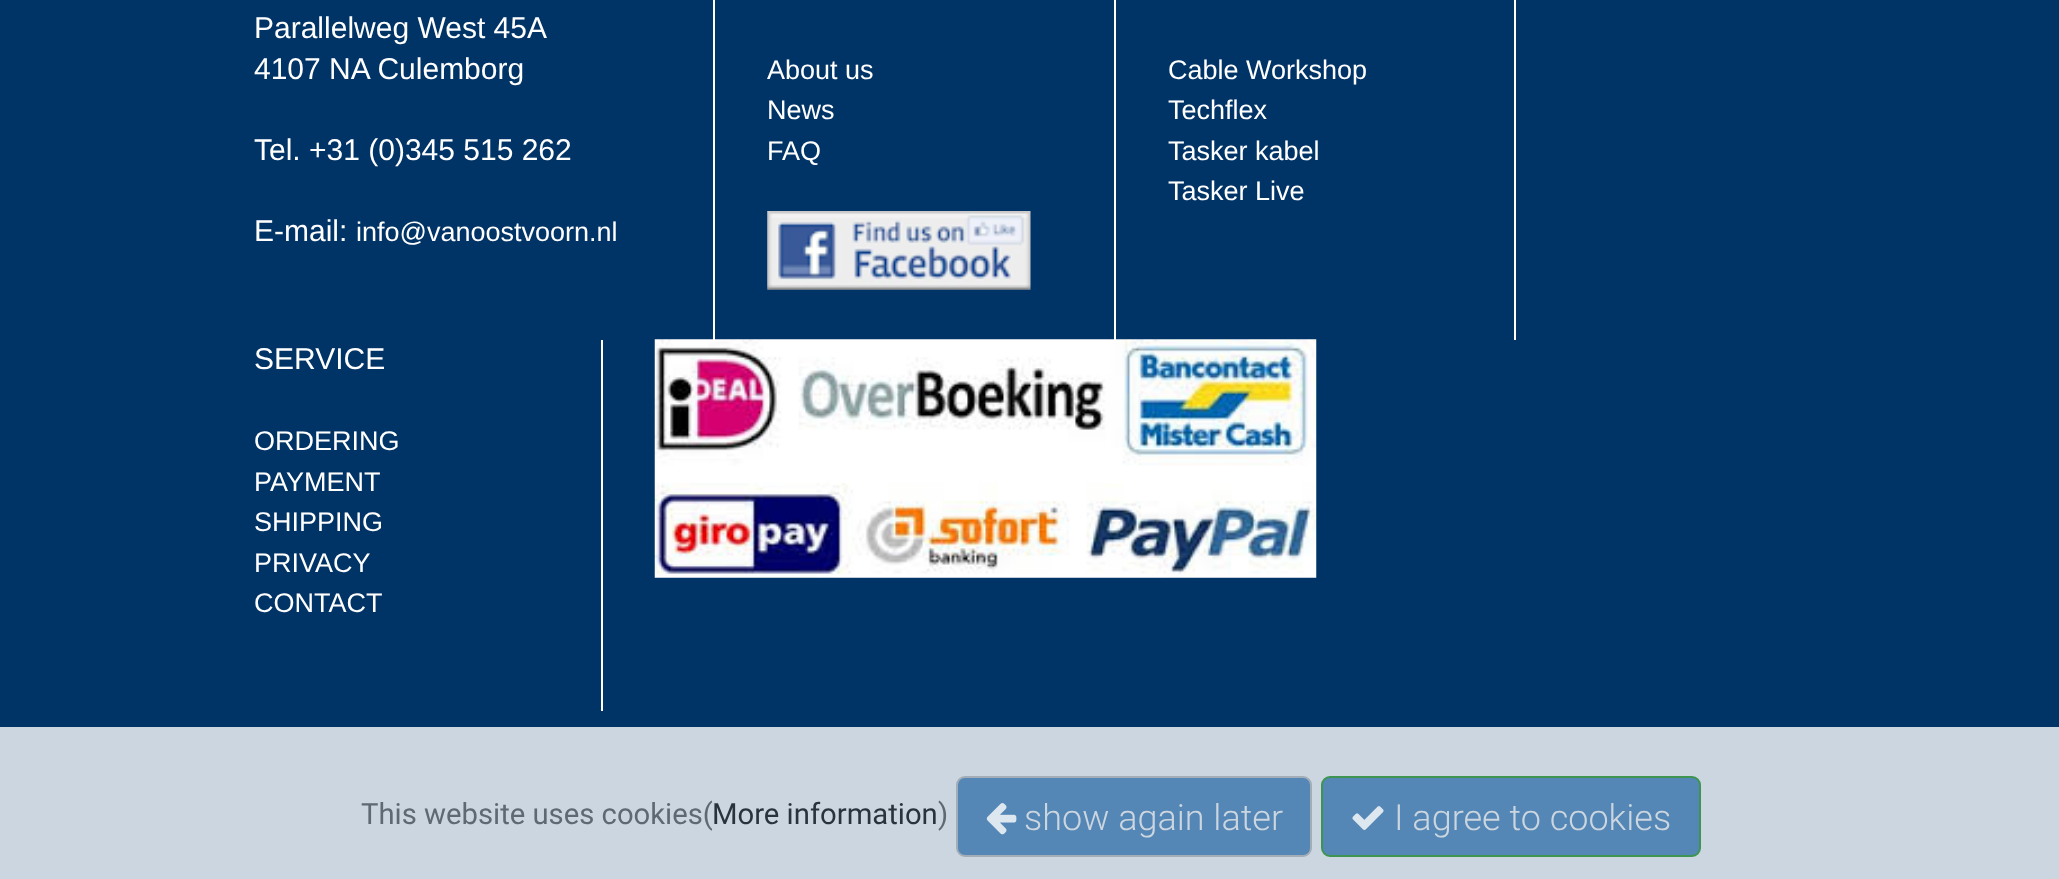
<!DOCTYPE html>
<meta charset="utf-8">
<style>body { margin: 0 } canvas { display: block }</style>
<canvas id="canvas" width="2059" height="879"></canvas>
<img id="img1" src="img_01.png" hidden>
<img id="img2" src="img_02.png" hidden>
<img id="img3" src="img_03.png" hidden>
<img id="img4" src="img_04.png" hidden>
<script>
window.onload = function () {
	const canvas = document.getElementById("canvas");
	const ctx = canvas.getContext("2d");
	ctx.miterLimit = 4;
	ctx.fontKerning = "normal";
	function txt(s, x, y) {
		ctx.fillText(s, x, y);
	}
	function fill(x, y, w, h) {
		ctx.fillRect(x, y, w, h);
	}
	function img(id, x, y, w, h) {
		ctx.drawImage(document.getElementById(id), x, y, w, h);
	}

	ctx.fillStyle = "#003366";
	fill(0, 0, 2059, 879);
	ctx.fillStyle = "#FFFFFF";
	fill(713, 0, 2, 340);
	fill(1114, 0, 2, 340);
	img("img1", 767, 211, 264, 79);
	fill(1514, 0, 2, 340);
	fill(601, 340, 2, 371);
	img("img2", 654, 339, 663, 239);
	ctx.fillStyle = "#CCD6E0";
	fill(0, 727, 2059, 152);
	ctx.fillStyle = "#5487B5";
	ctx.beginPath();
	ctx.roundRect(957, 777, 354, 79, 8);
	ctx.fill();
	ctx.strokeStyle = "#A3ADB8";
	ctx.lineWidth = 2;
	ctx.stroke();
	img("img3", 986, 803, 31, 32);
	ctx.beginPath();
	ctx.roundRect(1322, 777, 378, 79, 8);
	ctx.fill();
	ctx.strokeStyle = "#3D9551";
	ctx.stroke();
	img("img4", 1352, 806, 32, 24);
	ctx.font = "30px Liberation Sans";
	ctx.fillStyle = "#FFFFFF";
	txt("Parallelweg West 45A", 254, 38);
	txt("4107 NA Culemborg", 254, 79);
	txt("Tel. +31 (0)345 515 262", 254, 160);
	txt("E-mail:", 254, 241);
	ctx.font = "27px Liberation Sans";
	txt("info@vanoostvoorn.nl", 356, 241);
	txt("About us", 767, 79);
	txt("News", 767, 119);
	txt("FAQ", 767, 160);
	txt("Cable Workshop", 1168, 79);
	txt("Techflex", 1168, 119);
	txt("Tasker kabel", 1168, 160);
	txt("Tasker Live", 1168, 200);
	ctx.font = "30px Liberation Sans";
	txt("SERVICE", 254, 369);
	ctx.font = "27px Liberation Sans";
	txt("ORDERING", 254, 450);
	txt("PAYMENT", 254, 491);
	txt("SHIPPING", 254, 531);
	txt("PRIVACY", 254, 572);
	txt("CONTACT", 254, 612);
	ctx.font = "29.25px Roboto";
	ctx.fillStyle = "#5F6974";
	txt("This website uses cookies(", 361, 824);
	ctx.fillStyle = "#29333D";
	txt("More information", 712, 824);
	ctx.fillStyle = "#5F6974";
	txt(")", 938, 824);
	ctx.font = "300 36px Roboto";
	ctx.fillStyle = "#CCD6E0";
	txt("show again later", 1024, 830);
	txt("I agree to cookies", 1394, 830);
};
</script>
